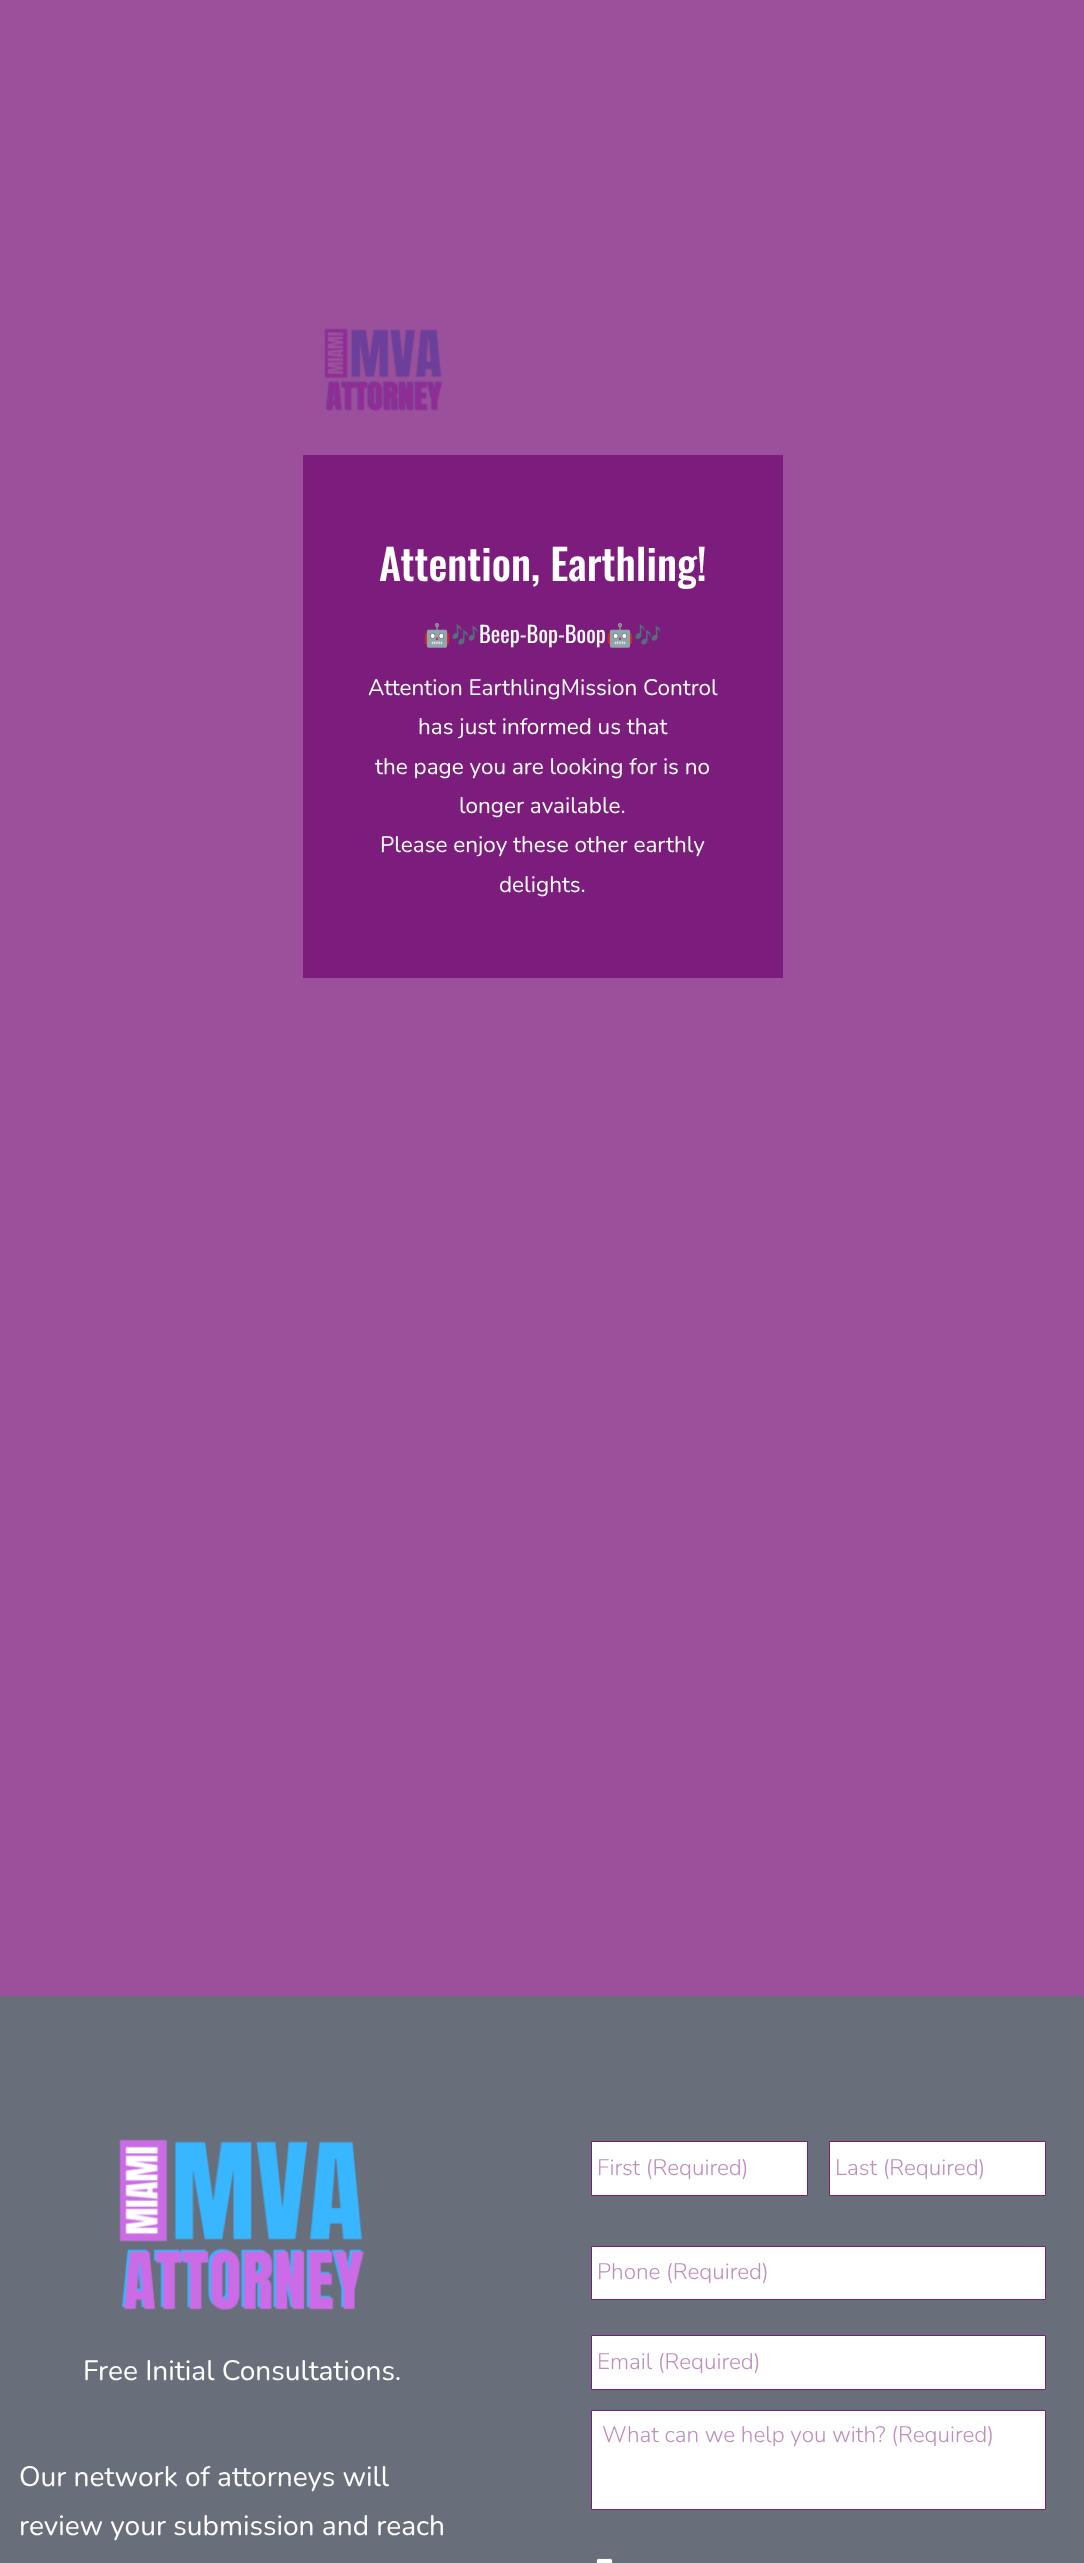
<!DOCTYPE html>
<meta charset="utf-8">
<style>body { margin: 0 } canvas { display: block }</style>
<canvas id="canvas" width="1084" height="2563"></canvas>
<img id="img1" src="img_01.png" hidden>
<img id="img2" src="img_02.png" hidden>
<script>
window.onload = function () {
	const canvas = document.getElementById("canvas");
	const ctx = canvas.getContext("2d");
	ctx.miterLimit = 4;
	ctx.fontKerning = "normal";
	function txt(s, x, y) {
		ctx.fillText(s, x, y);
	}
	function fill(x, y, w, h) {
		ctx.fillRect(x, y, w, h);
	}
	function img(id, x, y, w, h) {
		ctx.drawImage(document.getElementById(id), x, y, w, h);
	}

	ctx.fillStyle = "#9A509B";
	fill(0, 0, 1084, 2563);
	img("img1", 324, 328, 119, 83);
	ctx.fillStyle = "#7C1C7D";
	fill(303, 455, 480, 523);
	ctx.fillStyle = "#686E7A";
	fill(0, 1996, 1084, 567);
	img("img2", 119, 2139, 246, 171);
	ctx.fillStyle = "#FFFFFF";
	ctx.beginPath();
	ctx.rect(591.5, 2141.5, 216, 54);
	ctx.fill();
	ctx.strokeStyle = "#7C1C7D";
	ctx.stroke();
	ctx.beginPath();
	ctx.rect(829.5, 2141.5, 216, 54);
	ctx.fill();
	ctx.stroke();
	ctx.beginPath();
	ctx.rect(591.5, 2246.5, 454, 53);
	ctx.fill();
	ctx.stroke();
	ctx.beginPath();
	ctx.rect(591.5, 2335.5, 454, 54);
	ctx.fill();
	ctx.stroke();
	ctx.beginPath();
	ctx.rect(591.5, 2410.5, 454, 99);
	ctx.fill();
	ctx.stroke();
	ctx.beginPath();
	ctx.roundRect(596.5, 2558.5, 16, 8, 2);
	ctx.fill();
	ctx.strokeStyle = "#767676";
	ctx.stroke();
	ctx.font = "500 42.25px Oswald";
	txt("Attention, Earthling!", 379, 581);
	ctx.font = "22.5px Noto Color Emoji";
	txt("🤖🎶", 423, 643);
	ctx.font = "22.5px Oswald";
	txt("Beep-Bop-Boop", 479, 643);
	ctx.font = "22.5px Noto Color Emoji";
	txt("🤖🎶", 606, 643);
	ctx.font = "22.5px Nunito";
	txt("Attention EarthlingMission Control", 368, 695);
	txt("has just informed us that", 418, 734);
	txt("the page you are looking for is no", 375, 774);
	txt("longer available.", 459, 813);
	txt("Please enjoy these other earthly", 380, 852);
	txt("delights.", 499, 892);
	ctx.font = "28.1px Nunito";
	txt("Free Initial Consultations.", 83, 2380);
	txt("Our network of attorneys will", 19, 2486);
	txt("review your submission and reach", 19, 2535);
	ctx.font = "300 22.5px Nunito";
	ctx.fillStyle = "#BE8EBE";
	txt("First (Required)", 597, 2175);
	txt("Last (Required)", 835, 2175);
	txt("Phone (Required)", 597, 2279);
	txt("Email (Required)", 597, 2369);
	txt("What can we help you with? (Required)", 602, 2442);
};
</script>
